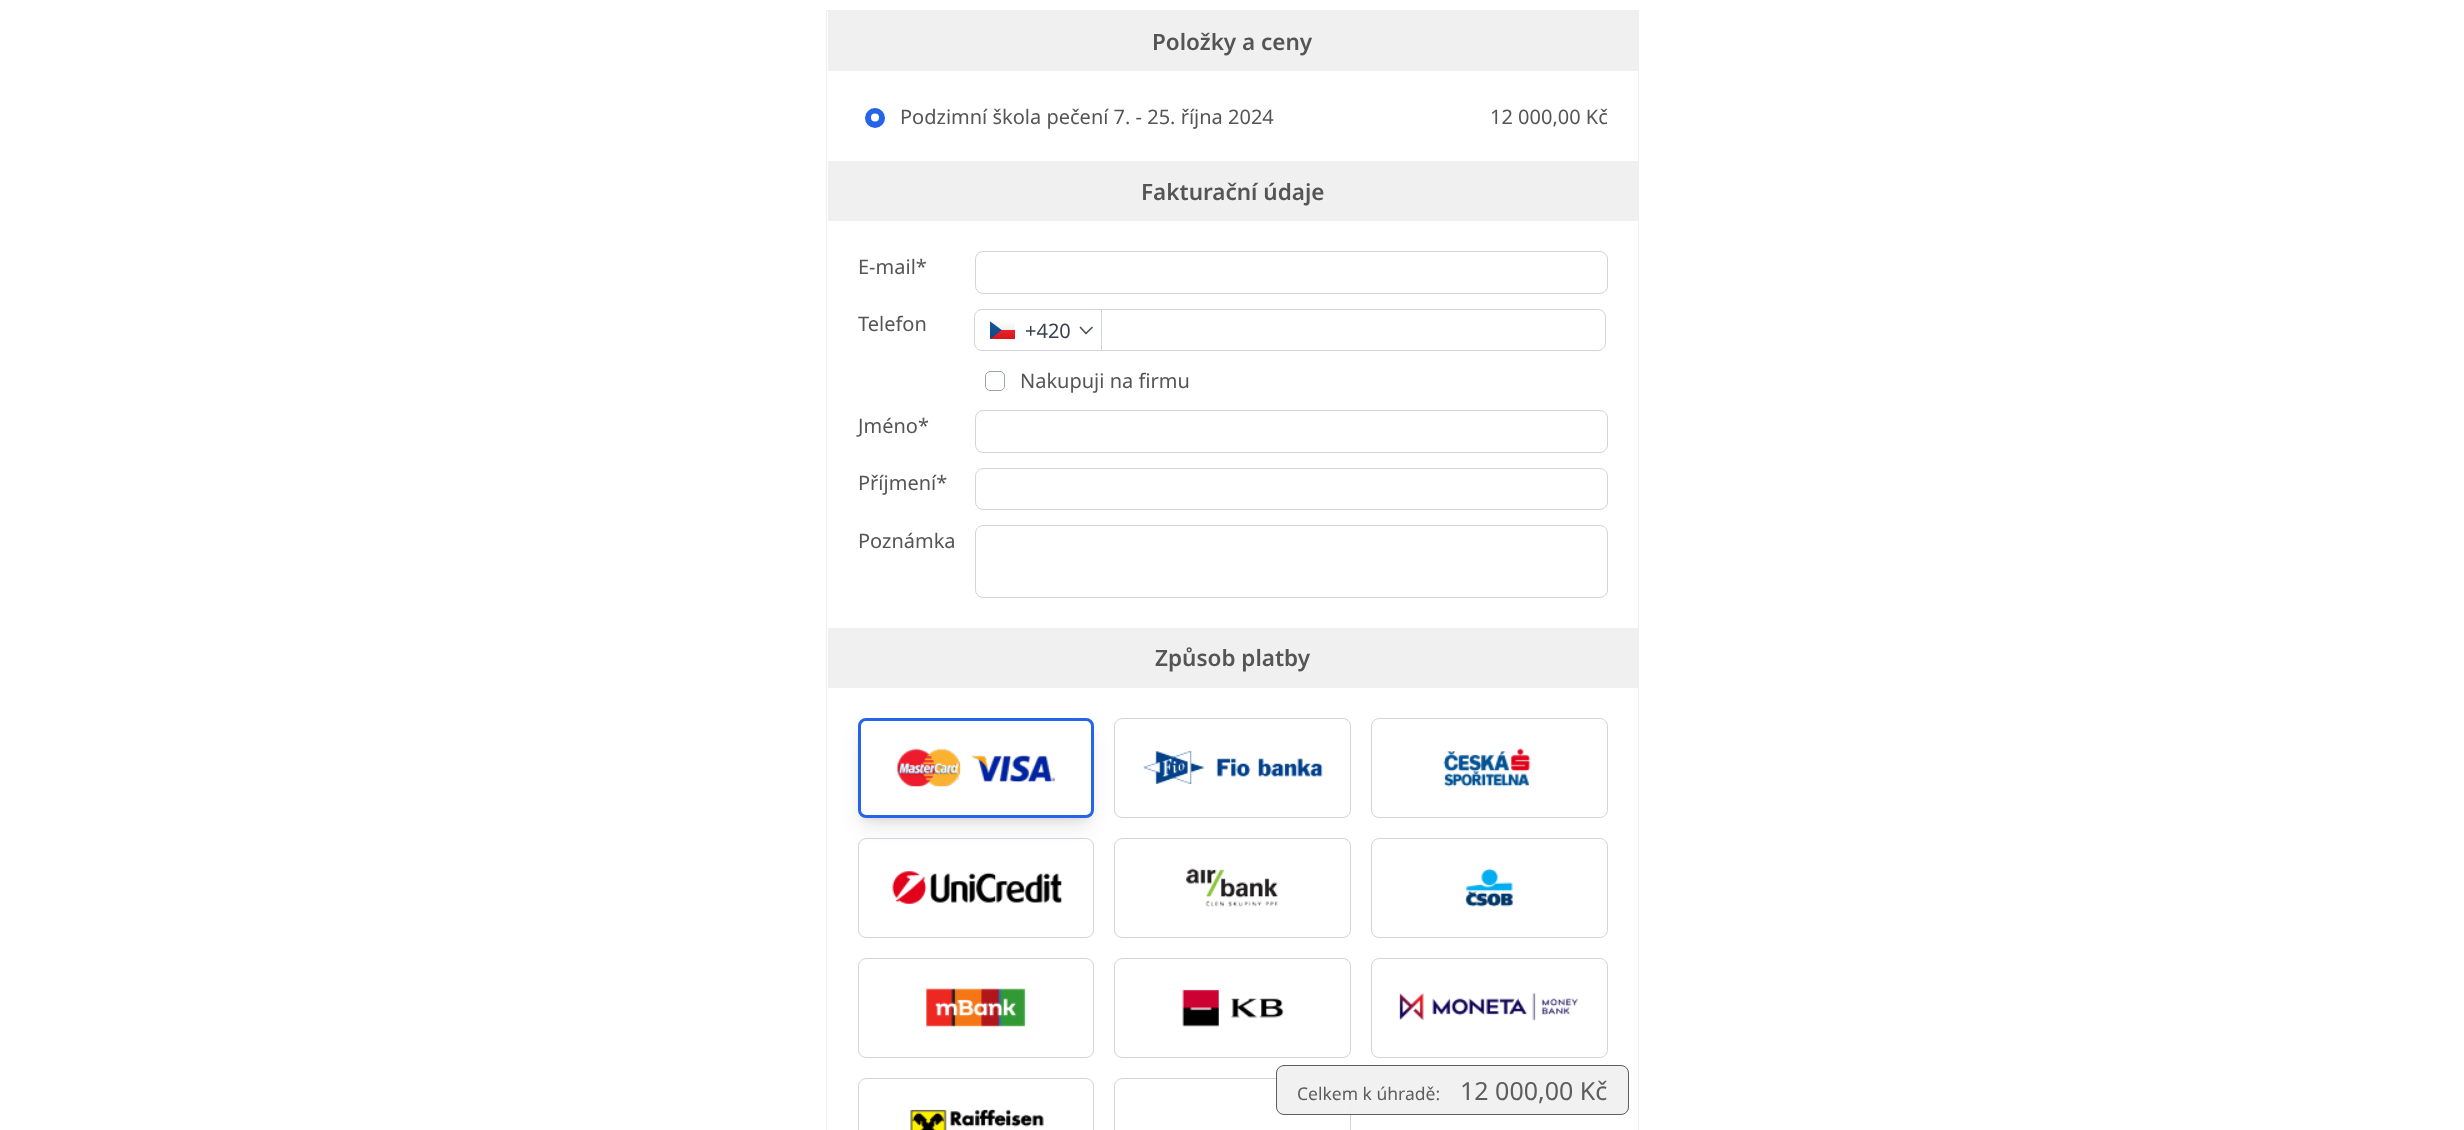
<!DOCTYPE html>
<meta charset="utf-8">
<style>body { margin: 0 } canvas { display: block }</style>
<canvas id="canvas" width="2464" height="1130"></canvas>
<img id="img1" src="img_01.png" hidden>
<img id="img2" src="img_02.png" hidden>
<img id="img3" src="img_03.png" hidden>
<img id="img4" src="img_04.png" hidden>
<img id="img5" src="img_05.png" hidden>
<img id="img6" src="img_06.png" hidden>
<img id="img7" src="img_07.png" hidden>
<img id="img8" src="img_08.png" hidden>
<img id="img9" src="img_09.png" hidden>
<img id="img10" src="img_10.png" hidden>
<img id="img11" src="img_11.png" hidden>
<script>
window.onload = function () {
	const canvas = document.getElementById("canvas");
	const ctx = canvas.getContext("2d");
	ctx.miterLimit = 4;
	ctx.fontKerning = "normal";
	function txt(s, x, y) {
		ctx.fillText(s, x, y);
	}
	function fill(x, y, w, h) {
		ctx.fillRect(x, y, w, h);
	}
	function round(x, y, w, h, r) {
		ctx.beginPath();
		ctx.roundRect(x, y, w, h, r);
		ctx.fill();
	}
	function img(id, x, y, w, h) {
		ctx.drawImage(document.getElementById(id), x, y, w, h);
	}

	ctx.fillStyle = "#FFFFFF";
	fill(0, 0, 2464, 1130);
	ctx.strokeStyle = "#F0F0F0";
	ctx.strokeRect(826.5, 10.5, 812, 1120);
	ctx.fillStyle = "#F0F0F0";
	fill(828, 11, 810, 60);
	ctx.fillStyle = "#2563EB";
	ctx.beginPath();
	ctx.arc(875, 118, 10, 0, Math.PI * 2);
	ctx.fill();
	ctx.fillStyle = "#FFFFFF";
	ctx.beginPath();
	ctx.arc(875, 117.5, 4, 0, Math.PI * 2);
	ctx.fill();
	ctx.fillStyle = "#F0F0F0";
	fill(828, 161, 810, 60);
	ctx.beginPath();
	ctx.roundRect(975.5, 251.5, 632, 42, 7.5);
	ctx.strokeStyle = "#D1D5DB";
	ctx.stroke();
	ctx.beginPath();
	ctx.roundRect(974.5, 309.5, 631, 41, 7.5);
	ctx.stroke();
	ctx.fillStyle = "#D1D5DB";
	fill(1101, 310, 1, 40);
	img("img1", 990, 321, 25, 18);
	ctx.beginPath();
	ctx.moveTo(1092, 327.5);
	ctx.lineTo(1086, 333.5);
	ctx.lineTo(1080.5, 327.5);
	ctx.strokeStyle = "#4B5563";
	ctx.lineWidth = 1.7;
	ctx.lineCap = "round";
	ctx.lineJoin = "round";
	ctx.stroke();
	ctx.beginPath();
	ctx.roundRect(985.5, 371.5, 19, 19, 4.5);
	ctx.strokeStyle = "#9CA3AF";
	ctx.lineWidth = 1;
	ctx.lineJoin = "miter";
	ctx.stroke();
	ctx.beginPath();
	ctx.roundRect(975.5, 410.5, 632, 42, 7.5);
	ctx.strokeStyle = "#D1D5DB";
	ctx.stroke();
	ctx.beginPath();
	ctx.roundRect(975.5, 468.5, 632, 41, 7.5);
	ctx.stroke();
	ctx.beginPath();
	ctx.roundRect(975.5, 525.5, 632, 72, 7.5);
	ctx.stroke();
	ctx.fillStyle = "#F0F0F0";
	fill(828, 628, 810, 60);
	ctx.fillStyle = "rgba(0, 0, 0, 0.1)";
	ctx.filter = "blur(4px)";
	ctx.beginPath();
	ctx.roundRect(863, 728, 226, 90, 2.5);
	ctx.fill();
	ctx.filter = "none";
	ctx.filter = "blur(9.5px)";
	ctx.beginPath();
	ctx.roundRect(861, 734, 229, 92, 4);
	ctx.fill();
	ctx.filter = "none";
	ctx.fillStyle = "#FFFFFF";
	ctx.beginPath();
	ctx.roundRect(859.5, 719.5, 233, 97, 6.5);
	ctx.fill();
	ctx.strokeStyle = "#2563EB";
	ctx.lineWidth = 3;
	ctx.stroke();
	img("img2", 897, 748, 158, 39);
	ctx.beginPath();
	ctx.roundRect(1114.5, 718.5, 236, 99, 7.5);
	ctx.strokeStyle = "#D1D5DB";
	ctx.lineWidth = 1;
	ctx.stroke();
	img("img3", 1143, 750, 180, 34);
	ctx.beginPath();
	ctx.roundRect(1371.5, 718.5, 236, 99, 7.5);
	ctx.stroke();
	img("img4", 1443, 748, 88, 39);
	ctx.beginPath();
	ctx.roundRect(858.5, 838.5, 235, 99, 7.5);
	ctx.stroke();
	img("img5", 892, 871, 170, 33);
	ctx.beginPath();
	ctx.roundRect(1114.5, 838.5, 236, 99, 7.5);
	ctx.stroke();
	img("img6", 1186, 868, 92, 39);
	ctx.beginPath();
	ctx.roundRect(1371.5, 838.5, 236, 99, 7.5);
	ctx.stroke();
	img("img7", 1465, 868, 49, 39);
	ctx.beginPath();
	ctx.roundRect(858.5, 958.5, 235, 99, 7.5);
	ctx.stroke();
	img("img8", 926, 988, 100, 39);
	ctx.beginPath();
	ctx.roundRect(1114.5, 958.5, 236, 99, 7.5);
	ctx.stroke();
	img("img9", 1182, 989, 102, 38);
	ctx.beginPath();
	ctx.roundRect(1371.5, 958.5, 236, 99, 7.5);
	ctx.stroke();
	img("img10", 1399, 992, 179, 29);
	ctx.beginPath();
	ctx.roundRect(858.5, 1078.5, 235, 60, 7.5);
	ctx.stroke();
	img("img11", 910, 1108, 134, 22);
	ctx.beginPath();
	ctx.roundRect(1114.5, 1078.5, 236, 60, 7.5);
	ctx.stroke();
	ctx.fillStyle = "rgba(240, 240, 240, 0.95)";
	round(1276, 1065, 353, 50, 8);
	ctx.beginPath();
	ctx.roundRect(1276.5, 1065.5, 352, 49, 7.5);
	ctx.strokeStyle = "rgba(85, 85, 85, 0.95)";
	ctx.stroke();
	ctx.font = "600 22.5px Noto Sans";
	ctx.fillStyle = "#555555";
	txt("Položky a ceny", 1152, 50);
	ctx.font = "20px Noto Sans";
	txt("Podzimní škola pečení 7. - 25. října 2024", 900, 124);
	txt("12 000,00 Kč", 1490, 124);
	ctx.font = "600 22.5px Noto Sans";
	txt("Fakturační údaje", 1141, 200);
	ctx.font = "20px Noto Sans";
	txt("E-mail*", 858, 274);
	txt("Telefon", 858, 331);
	ctx.fillStyle = "#374151";
	txt("+420", 1025, 338);
	ctx.fillStyle = "#555555";
	txt("Nakupuji na firmu", 1020, 388);
	txt("Jméno*", 858, 433);
	txt("Příjmení*", 858, 490);
	txt("Poznámka", 858, 548);
	ctx.font = "600 22.5px Noto Sans";
	txt("Způsob platby", 1155, 666);
	ctx.font = "17.5px Noto Sans";
	ctx.fillStyle = "#5D5D5D";
	txt("Celkem k úhradě:", 1297, 1100);
	ctx.font = "25px Noto Sans";
	txt("12 000,00 Kč", 1460, 1100);
};
</script>
